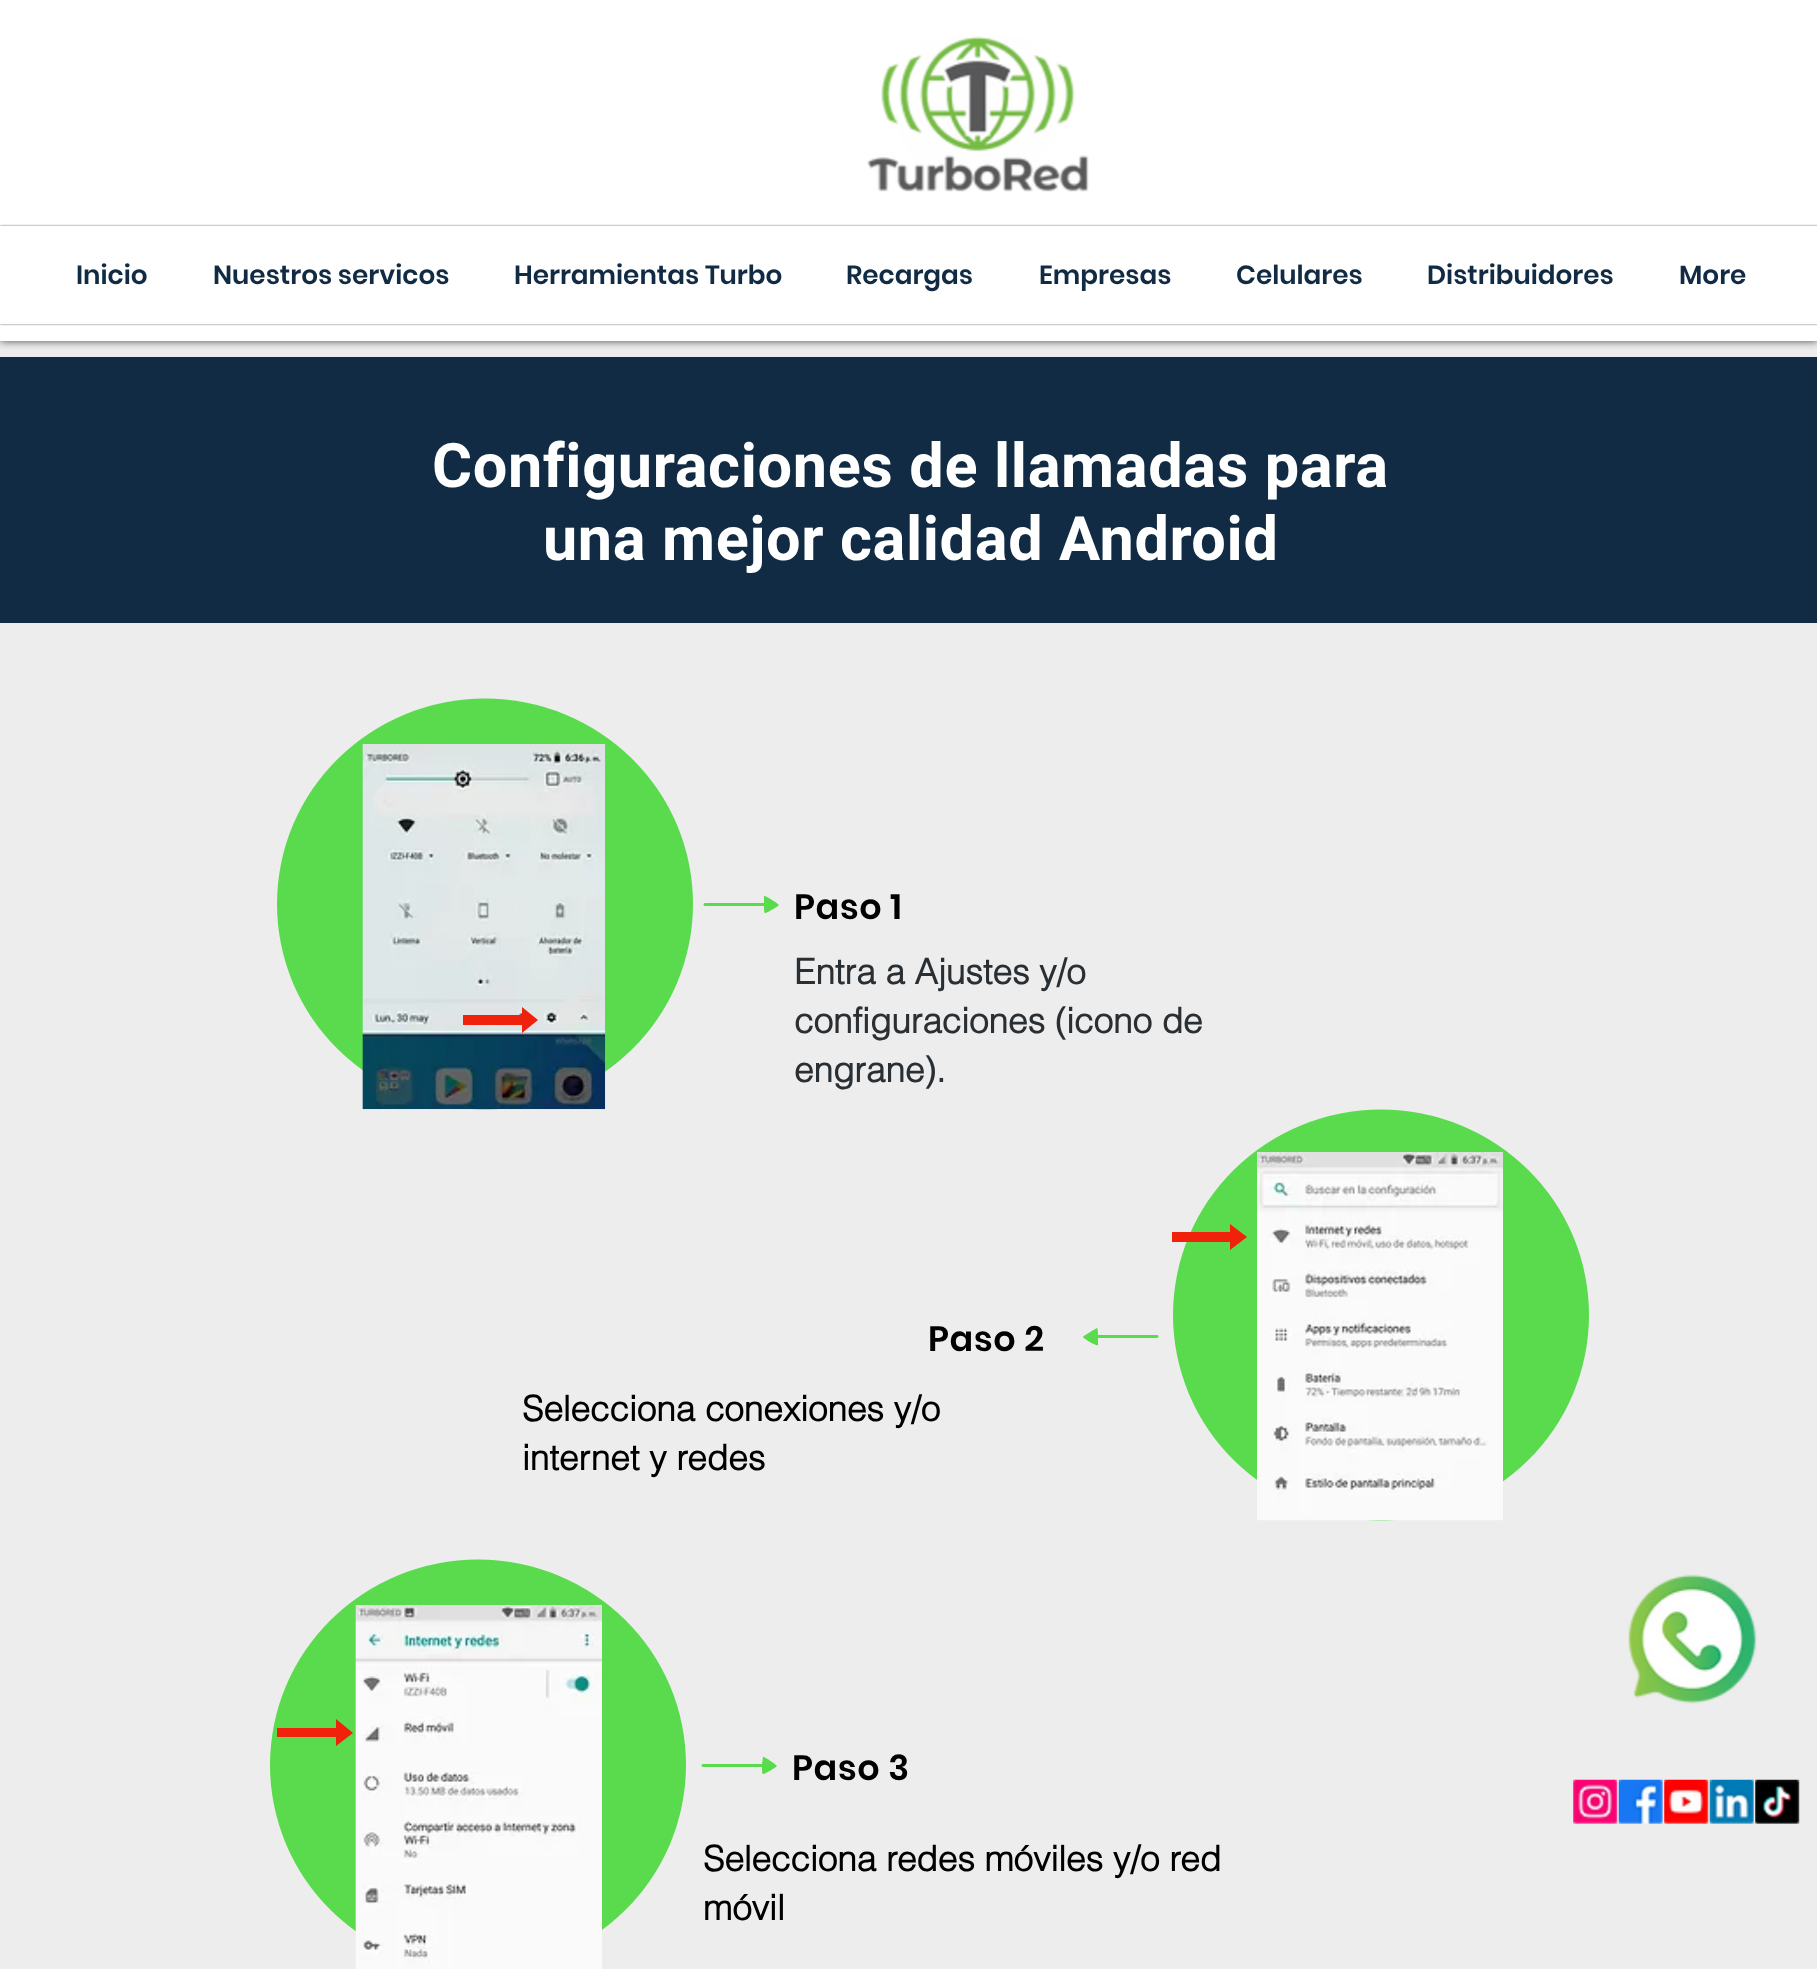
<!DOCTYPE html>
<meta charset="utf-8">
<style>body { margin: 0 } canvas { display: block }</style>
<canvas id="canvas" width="1817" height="1969"></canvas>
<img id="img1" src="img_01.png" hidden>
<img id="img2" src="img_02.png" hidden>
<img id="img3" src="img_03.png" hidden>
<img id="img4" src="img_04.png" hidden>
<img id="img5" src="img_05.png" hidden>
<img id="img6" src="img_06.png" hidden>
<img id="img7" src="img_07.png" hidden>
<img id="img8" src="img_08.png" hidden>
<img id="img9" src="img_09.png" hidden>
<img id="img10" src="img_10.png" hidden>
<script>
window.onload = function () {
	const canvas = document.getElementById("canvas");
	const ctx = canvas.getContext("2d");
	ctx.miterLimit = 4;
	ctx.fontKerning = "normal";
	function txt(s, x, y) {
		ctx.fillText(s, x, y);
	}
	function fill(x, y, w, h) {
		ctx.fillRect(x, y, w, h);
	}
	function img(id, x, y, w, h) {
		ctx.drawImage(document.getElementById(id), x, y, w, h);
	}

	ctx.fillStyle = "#EDEDED";
	fill(0, 0, 1817, 1969);
	ctx.fillStyle = "rgba(0, 0, 0, 0.7)";
	ctx.filter = "blur(4.5px)";
	ctx.beginPath();
	ctx.rect(0, 0, 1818, 341);
	ctx.fill();
	ctx.filter = "none";
	ctx.fillStyle = "#FFFFFF";
	fill(0, 0, 1817, 341);
	img("img1", 867, 36, 222, 156);
	ctx.fillStyle = "rgba(0, 0, 0, 0.6)";
	ctx.filter = "blur(1px)";
	ctx.beginPath();
	ctx.rect(0, 226, 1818, 98);
	ctx.fill();
	ctx.filter = "none";
	ctx.fillStyle = "#FFFFFF";
	fill(0, 226, 1817, 98);
	ctx.fillStyle = "#102B43";
	fill(0, 357, 1817, 266);
	ctx.fillStyle = "#59DB4D";
	ctx.beginPath();
	ctx.ellipse(485, 904, 208, 205.5, 0, 0, Math.PI * 2);
	ctx.fill();
	img("img2", 362, 744, 244, 366);
	ctx.fillStyle = "#F0220B";
	ctx.beginPath();
	ctx.moveTo(463, 1025);
	ctx.lineTo(522, 1025);
	ctx.lineTo(522, 1033);
	ctx.lineTo(538, 1020);
	ctx.lineTo(522, 1007);
	ctx.lineTo(522, 1015);
	ctx.lineTo(463, 1015);
	ctx.closePath();
	ctx.fill();
	ctx.fillStyle = "#59DB4D";
	ctx.beginPath();
	ctx.moveTo(705, 906);
	ctx.lineTo(764, 906);
	ctx.bezierCurveTo(764, 908, 764, 913, 765, 913);
	ctx.bezierCurveTo(765, 914, 779, 906, 779, 905);
	ctx.bezierCurveTo(779, 904, 765, 895, 764, 896);
	ctx.lineTo(764, 903);
	ctx.lineTo(705, 903);
	ctx.bezierCurveTo(703, 903, 703, 906, 705, 906);
	ctx.closePath();
	ctx.fill();
	ctx.beginPath();
	ctx.moveTo(1157, 1335);
	ctx.lineTo(1098, 1335);
	ctx.bezierCurveTo(1098, 1334, 1098, 1329, 1097, 1328);
	ctx.bezierCurveTo(1097, 1328, 1083, 1336, 1083, 1337);
	ctx.bezierCurveTo(1083, 1338, 1097, 1347, 1098, 1345);
	ctx.lineTo(1098, 1338);
	ctx.lineTo(1157, 1338);
	ctx.bezierCurveTo(1159, 1338, 1159, 1335, 1157, 1335);
	ctx.closePath();
	ctx.fill();
	ctx.beginPath();
	ctx.ellipse(1381, 1315, 208, 205.5, 0, 0, Math.PI * 2);
	ctx.fill();
	ctx.fillStyle = "#F0220B";
	ctx.beginPath();
	ctx.moveTo(1172, 1242);
	ctx.lineTo(1230, 1242);
	ctx.lineTo(1230, 1250);
	ctx.lineTo(1247, 1237);
	ctx.lineTo(1230, 1224);
	ctx.lineTo(1230, 1232);
	ctx.lineTo(1172, 1232);
	ctx.closePath();
	ctx.fill();
	img("img3", 1257, 1152, 246, 369);
	ctx.fillStyle = "#59DB4D";
	ctx.beginPath();
	ctx.ellipse(478, 1765, 208, 205.5, 0, 0, Math.PI * 2);
	ctx.fill();
	ctx.fillStyle = "#F0220B";
	ctx.beginPath();
	ctx.moveTo(277, 1737);
	ctx.lineTo(336, 1737);
	ctx.lineTo(336, 1746);
	ctx.lineTo(353, 1733);
	ctx.lineTo(336, 1719);
	ctx.lineTo(336, 1728);
	ctx.lineTo(277, 1728);
	ctx.closePath();
	ctx.fill();
	img("img4", 355, 1605, 247, 364);
	ctx.fillStyle = "#59DB4D";
	ctx.beginPath();
	ctx.moveTo(703, 1767);
	ctx.lineTo(762, 1767);
	ctx.bezierCurveTo(762, 1769, 762, 1774, 763, 1774);
	ctx.bezierCurveTo(763, 1775, 777, 1767, 777, 1766);
	ctx.bezierCurveTo(777, 1765, 764, 1756, 763, 1757);
	ctx.lineTo(762, 1764);
	ctx.lineTo(703, 1764);
	ctx.bezierCurveTo(701, 1764, 701, 1767, 703, 1767);
	ctx.closePath();
	ctx.fill();
	img("img5", 1628, 1574, 129, 130);
	img("img6", 1573, 1779, 45, 45);
	img("img7", 1618, 1779, 45, 45);
	img("img8", 1664, 1779, 45, 45);
	img("img9", 1709, 1779, 45, 45);
	img("img10", 1755, 1779, 45, 45);
	ctx.font = "600 26.25px Poppins";
	ctx.fillStyle = "#102B43";
	txt("Inicio", 76, 284);
	txt("Nuestros servicos", 213, 284);
	txt("Herramientas Turbo", 514, 284);
	txt("Recargas", 846, 284);
	txt("Empresas", 1039, 284);
	txt("Celulares", 1236, 284);
	txt("Distribuidores", 1427, 284);
	txt("More", 1679, 284);
	ctx.letterSpacing = "0.6px";
	ctx.font = "bold 61.25px Roboto";
	ctx.fillStyle = "#FFFFFF";
	txt("Configuraciones de llamadas para", 432, 487);
	txt("una mejor calidad Android", 543, 560);
	ctx.letterSpacing = "0.5px";
	ctx.font = "600 35px Poppins";
	ctx.fillStyle = "#000000";
	txt("Paso 1", 794, 919);
	ctx.letterSpacing = "0px";
	ctx.font = "bold 35px helvetica";
	ctx.fillStyle = "#292F33";
	txt("Entra a Ajustes y/o", 794, 984);
	txt("configuraciones (icono de", 794, 1033);
	txt("engrane).", 794, 1082);
	ctx.letterSpacing = "0.5px";
	ctx.font = "600 35px Poppins";
	ctx.fillStyle = "#000000";
	txt("Paso 2", 928, 1351);
	ctx.letterSpacing = "0px";
	ctx.font = "bold 35px helvetica";
	txt("Selecciona conexiones y/o", 522, 1421);
	txt("internet y redes", 522, 1470);
	ctx.letterSpacing = "0.5px";
	ctx.font = "600 35px Poppins";
	txt("Paso 3", 792, 1780);
	ctx.letterSpacing = "0px";
	ctx.font = "bold 35px helvetica";
	txt("Selecciona redes móviles y/o red", 703, 1871);
	txt("móvil", 703, 1920);
};
</script>
